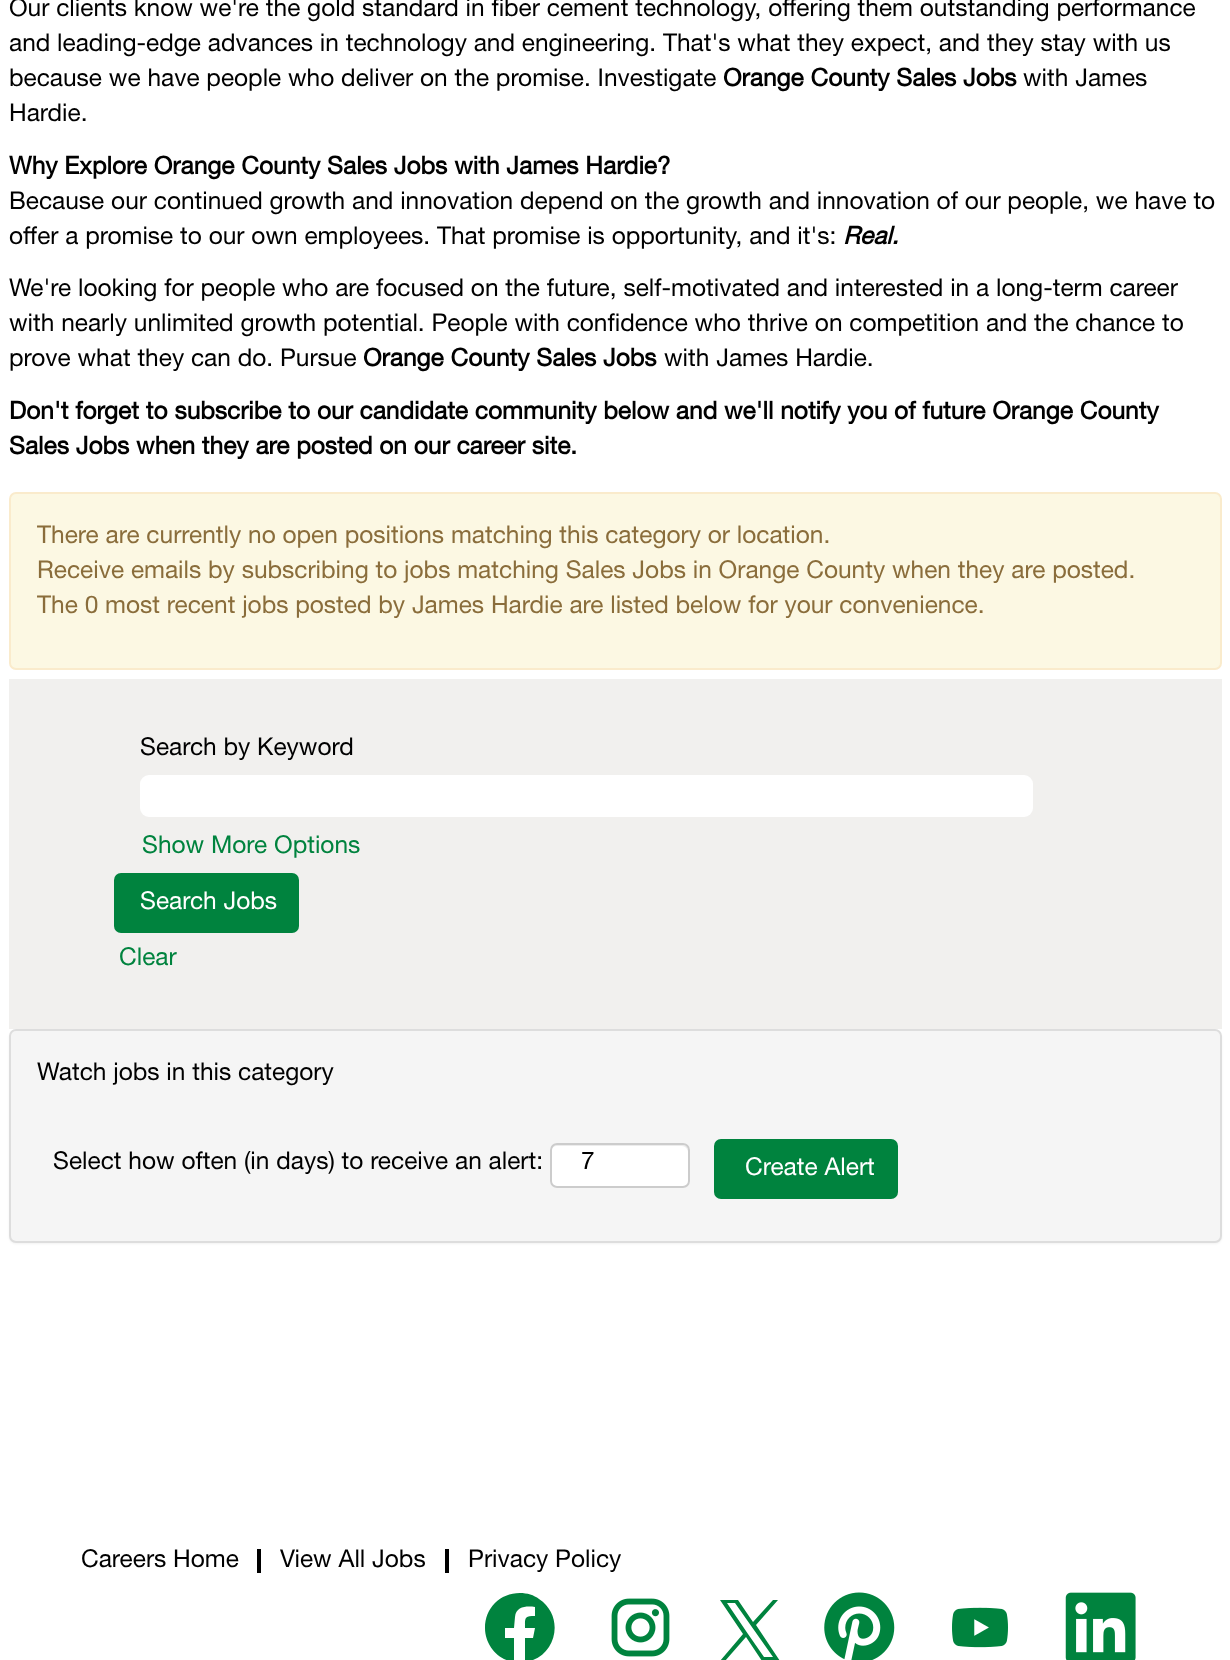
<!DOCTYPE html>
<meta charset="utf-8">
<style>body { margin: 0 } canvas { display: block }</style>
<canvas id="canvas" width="1230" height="1660"></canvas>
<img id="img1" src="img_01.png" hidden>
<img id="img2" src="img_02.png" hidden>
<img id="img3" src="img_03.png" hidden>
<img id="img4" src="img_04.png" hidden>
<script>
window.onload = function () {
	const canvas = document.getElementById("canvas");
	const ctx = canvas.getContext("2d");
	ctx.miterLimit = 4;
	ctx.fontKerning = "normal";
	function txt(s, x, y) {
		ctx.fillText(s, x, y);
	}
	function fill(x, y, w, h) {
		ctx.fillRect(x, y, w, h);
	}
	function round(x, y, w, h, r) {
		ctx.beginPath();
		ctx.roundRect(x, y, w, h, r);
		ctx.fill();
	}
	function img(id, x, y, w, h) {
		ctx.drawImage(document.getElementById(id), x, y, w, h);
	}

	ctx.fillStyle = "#FFFFFF";
	fill(0, 0, 1230, 1660);
	ctx.fillStyle = "#FCF8E3";
	ctx.beginPath();
	ctx.roundRect(10, 493, 1211, 176, 6);
	ctx.fill();
	ctx.strokeStyle = "#FAEBCC";
	ctx.lineWidth = 2;
	ctx.stroke();
	ctx.fillStyle = "#F1F0EE";
	fill(9, 679, 1213, 350);
	ctx.fillStyle = "#FFFFFF";
	round(140, 775, 893, 42, 9);
	ctx.fillStyle = "#00833E";
	round(114, 873, 185, 60, 7);
	ctx.fillStyle = "rgba(0, 0, 0, 0.05)";
	ctx.filter = "blur(1px)";
	ctx.beginPath();
	ctx.roundRect(9, 1031, 1213, 213, 7);
	ctx.fill();
	ctx.filter = "none";
	ctx.fillStyle = "#F5F5F5";
	ctx.beginPath();
	ctx.roundRect(10, 1030, 1211, 212, 6);
	ctx.fill();
	ctx.strokeStyle = "#DDDDDD";
	ctx.stroke();
	ctx.fillStyle = "#FFFFFF";
	round(550, 1143, 140, 45, 7);
	ctx.fillStyle = "#ECECEC";
	ctx.beginPath();
	ctx.moveTo(556, 1146);
	ctx.lineTo(682, 1146);
	ctx.bezierCurveTo(685, 1146, 688, 1149, 688, 1152);
	ctx.lineTo(688, 1150);
	ctx.bezierCurveTo(688, 1147, 686, 1145, 683, 1145);
	ctx.lineTo(556, 1145);
	ctx.bezierCurveTo(553, 1145, 551, 1147, 551, 1150);
	ctx.lineTo(551, 1152);
	ctx.bezierCurveTo(551, 1149, 554, 1146, 556, 1146);
	ctx.closePath();
	ctx.fill();
	ctx.beginPath();
	ctx.roundRect(551, 1144, 138, 43, 6);
	ctx.strokeStyle = "#CCCCCC";
	ctx.stroke();
	ctx.fillStyle = "#00833E";
	round(714, 1139, 184, 60, 7);
	ctx.fillStyle = "#000000";
	fill(257, 1549, 4, 24);
	fill(445, 1549, 4, 24);
	ctx.fillStyle = "#00833E";
	ctx.beginPath();
	ctx.moveTo(520, 1593);
	ctx.bezierCurveTo(500, 1593, 485, 1608, 485, 1628);
	ctx.bezierCurveTo(485, 1645, 498, 1660, 514, 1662);
	ctx.lineTo(514, 1638);
	ctx.lineTo(505, 1638);
	ctx.lineTo(505, 1628);
	ctx.lineTo(514, 1628);
	ctx.lineTo(515, 1617);
	ctx.bezierCurveTo(516, 1606, 527, 1606, 535, 1607);
	ctx.lineTo(535, 1616);
	ctx.bezierCurveTo(524, 1616, 525, 1618, 525, 1628);
	ctx.lineTo(535, 1628);
	ctx.lineTo(533, 1638);
	ctx.lineTo(525, 1638);
	ctx.lineTo(525, 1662);
	ctx.bezierCurveTo(556, 1658, 566, 1617, 539, 1599);
	ctx.bezierCurveTo(534, 1595, 527, 1593, 520, 1593);
	ctx.closePath();
	ctx.fill();
	img("img1", 611, 1598, 59, 59);
	ctx.beginPath();
	ctx.moveTo(756, 1625);
	ctx.lineTo(778, 1600);
	ctx.lineTo(773, 1600);
	ctx.lineTo(753, 1622);
	ctx.lineTo(738, 1600);
	ctx.lineTo(720, 1600);
	ctx.lineTo(743, 1634);
	ctx.lineTo(720, 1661);
	ctx.lineTo(725, 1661);
	ctx.lineTo(746, 1637);
	ctx.lineTo(762, 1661);
	ctx.lineTo(780, 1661);
	ctx.closePath();
	ctx.moveTo(748, 1634);
	ctx.lineTo(727, 1603);
	ctx.lineTo(735, 1603);
	ctx.lineTo(773, 1657);
	ctx.lineTo(764, 1657);
	ctx.closePath();
	ctx.fill();
	img("img2", 824, 1592, 71, 68);
	img("img3", 952, 1607, 56, 41);
	img("img4", 1065, 1592, 71, 68);
	ctx.font = "24.5px Helvetica Neue";
	ctx.fillStyle = "#000000";
	txt("Our clients know we're the gold standard in fiber cement technology, offering them outstanding performance", 9, 16);
	txt("and leading-edge advances in technology and engineering. That's what they expect, and they stay with us", 9, 51);
	txt("because we have people who deliver on the promise. Investigate", 9, 86);
	ctx.font = "bold 24.5px Helvetica Neue";
	txt("Orange County Sales Jobs", 723, 86);
	ctx.font = "24.5px Helvetica Neue";
	txt("with James", 1023, 86);
	txt("Hardie.", 9, 121);
	ctx.font = "bold 24.5px Helvetica Neue";
	txt("Why Explore Orange County Sales Jobs with James Hardie?", 9, 174);
	ctx.font = "24.5px Helvetica Neue";
	txt("Because our continued growth and innovation depend on the growth and innovation of our people, we have to", 9, 209);
	txt("offer a promise to our own employees. That promise is opportunity, and it's:", 9, 244);
	ctx.font = "italic bold 24.5px Helvetica Neue";
	txt("Real.", 843, 244);
	ctx.font = "24.5px Helvetica Neue";
	txt("We're looking for people who are focused on the future, self-motivated and interested in a long-term career", 9, 296);
	txt("with nearly unlimited growth potential. People with confidence who thrive on competition and the chance to", 9, 331);
	txt("prove what they can do. Pursue", 9, 366);
	ctx.font = "bold 24.5px Helvetica Neue";
	txt("Orange County Sales Jobs", 363, 366);
	ctx.font = "24.5px Helvetica Neue";
	txt("with James Hardie.", 664, 366);
	ctx.font = "bold 24.5px Helvetica Neue";
	txt("Don't forget to subscribe to our candidate community below and we'll notify you of future Orange County", 9, 419);
	txt("Sales Jobs when they are posted on our career site.", 9, 454);
	ctx.font = "24.5px Helvetica Neue";
	ctx.fillStyle = "#8A6D3B";
	txt("There are currently no open positions matching this category or location.", 37, 543);
	txt("Receive emails by subscribing to jobs matching Sales Jobs in Orange County when they are posted.", 37, 578);
	txt("The 0 most recent jobs posted by James Hardie are listed below for your convenience.", 37, 613);
	ctx.fillStyle = "#000000";
	txt("Search by Keyword", 140, 755);
	ctx.fillStyle = "#00833E";
	txt("Show More Options", 142, 853);
	ctx.fillStyle = "#FFFFFF";
	txt("Search Jobs", 140, 909);
	ctx.fillStyle = "#00833E";
	txt("Clear", 119, 965);
	ctx.fillStyle = "#000000";
	txt("Watch jobs in this category", 37, 1080);
	txt("Select how often (in days) to receive an alert:", 53, 1169);
	txt("7", 581, 1169);
	ctx.fillStyle = "#FFFFFF";
	txt("Create Alert", 745, 1175);
	ctx.fillStyle = "#000000";
	txt("Careers Home", 81, 1567);
	txt("View All Jobs", 280, 1567);
	txt("Privacy Policy", 468, 1567);
};
</script>
